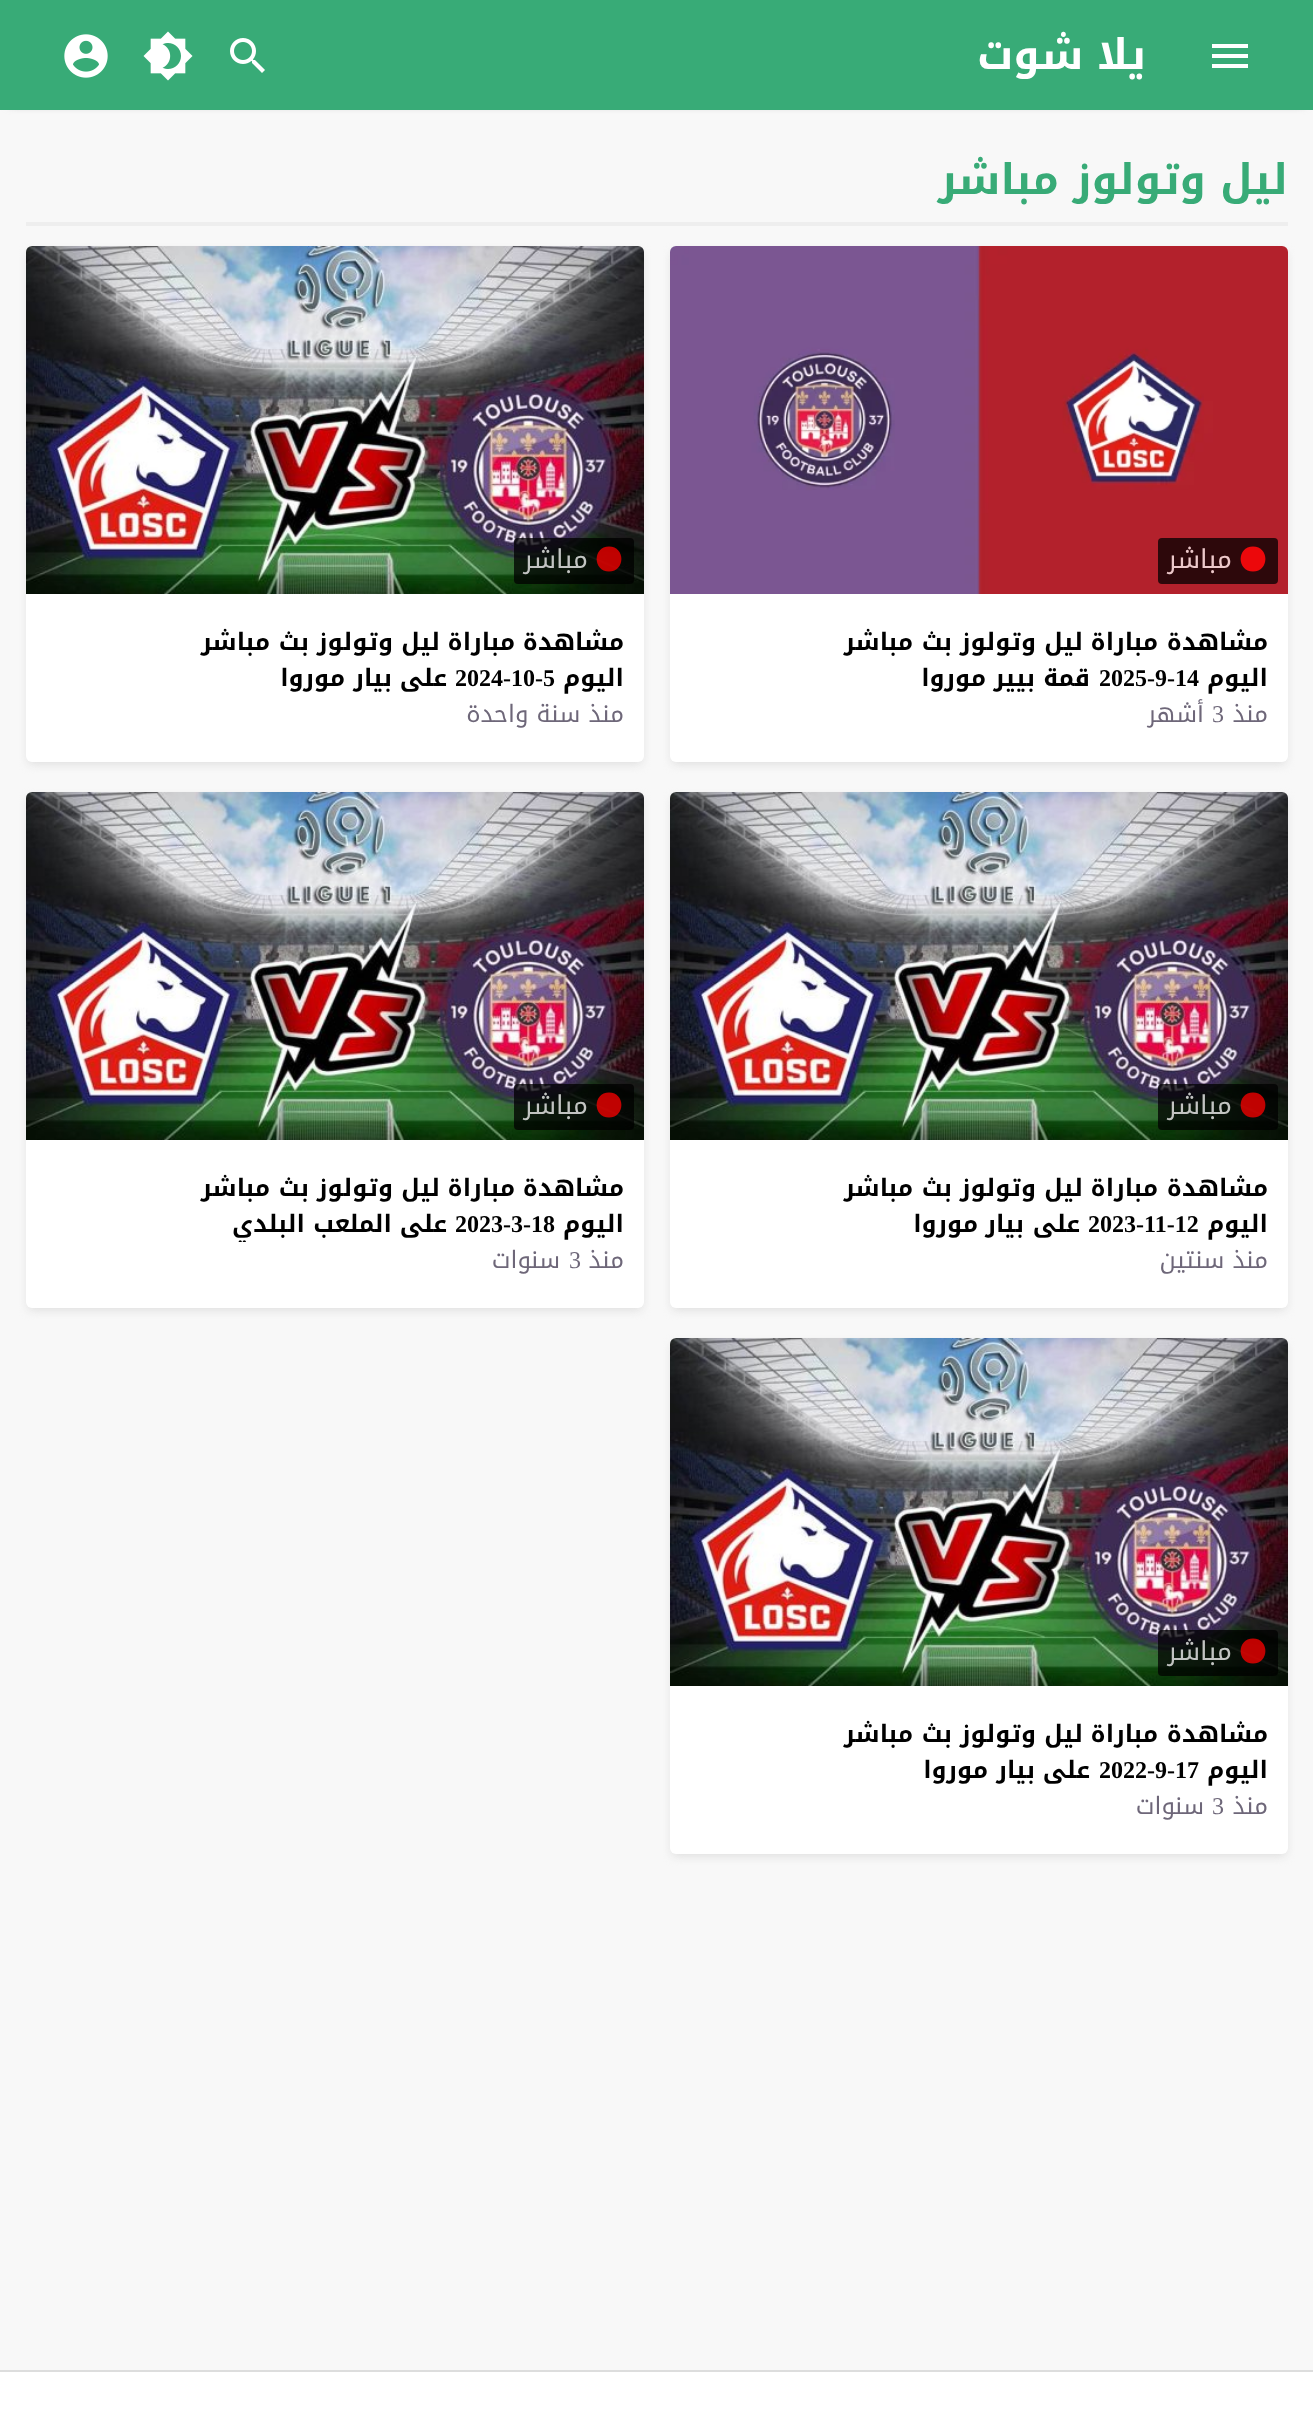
<!DOCTYPE html>
<meta charset="utf-8">
<style>body { margin: 0 } canvas { display: block }</style>
<canvas id="canvas" width="1313" height="2424"></canvas>
<img id="img1" src="img_01.png" hidden>
<img id="img2" src="img_02.png" hidden>
<img id="img3" src="img_03.png" hidden>
<img id="img4" src="img_04.png" hidden>
<img id="img5" src="img_05.png" hidden>
<img id="img6" src="img_06.png" hidden>
<img id="img7" src="img_07.png" hidden>
<script>
window.onload = function () {
	const canvas = document.getElementById("canvas");
	const ctx = canvas.getContext("2d");
	ctx.miterLimit = 4;
	ctx.fontKerning = "normal";
	function txt(s, x, y) {
		ctx.fillText(s, x, y);
	}
	function fill(x, y, w, h) {
		ctx.fillRect(x, y, w, h);
	}
	function round(x, y, w, h, r) {
		ctx.beginPath();
		ctx.roundRect(x, y, w, h, r);
		ctx.fill();
	}
	function img(id, x, y, w, h) {
		ctx.drawImage(document.getElementById(id), x, y, w, h);
	}

	ctx.fillStyle = "#F8F8F8";
	fill(0, 0, 1313, 2424);
	ctx.fillStyle = "#999999";
	ctx.filter = "blur(5px)";
	ctx.beginPath();
	ctx.rect(10, 14, 1294, 90);
	ctx.fill();
	ctx.filter = "none";
	ctx.fillStyle = "#38AB77";
	fill(0, 0, 1313, 110);
	img("img1", 1212, 44, 36, 24);
	img("img2", 230, 38, 35, 35);
	img("img3", 143, 31, 50, 50);
	img("img4", 64, 34, 44, 44);
	ctx.fillStyle = "#EEEEEE";
	fill(26, 222, 1262, 4);
	ctx.fillStyle = "#DDDDDD";
	ctx.filter = "blur(5px)";
	ctx.beginPath();
	ctx.roundRect(672, 252, 614, 512, 4);
	ctx.fill();
	ctx.filter = "none";
	ctx.fillStyle = "#FFFFFF";
	round(670, 246, 618, 516, 6);
	img("img5", 670, 246, 618, 348);
	ctx.fillStyle = "#2D080B";
	round(1158, 538, 120, 46, 4);
	ctx.fillStyle = "#EC080B";
	ctx.beginPath();
	ctx.moveTo(1253, 546.5);
	ctx.bezierCurveTo(1236.5, 546.5, 1236.5, 571.5, 1253, 571.5);
	ctx.bezierCurveTo(1269.5, 571.5, 1269.5, 546.5, 1253, 546.5);
	ctx.closePath();
	ctx.fill();
	ctx.fillStyle = "#DDDDDD";
	ctx.filter = "blur(5px)";
	ctx.beginPath();
	ctx.roundRect(28, 252, 614, 512, 4);
	ctx.fill();
	ctx.filter = "none";
	ctx.fillStyle = "#FFFFFF";
	round(26, 246, 618, 516, 6);
	img("img6", 26, 246, 618, 348);
	ctx.fillStyle = "rgba(0, 0, 0, 0.75)";
	round(514, 538, 120, 46, 4);
	ctx.fillStyle = "rgba(255, 0, 0, 0.75)";
	ctx.beginPath();
	ctx.moveTo(609, 546.5);
	ctx.bezierCurveTo(592.5, 546.5, 592.5, 571.5, 609, 571.5);
	ctx.bezierCurveTo(625.5, 571.5, 625.5, 546.5, 609, 546.5);
	ctx.closePath();
	ctx.fill();
	ctx.fillStyle = "#DDDDDD";
	ctx.filter = "blur(5px)";
	ctx.beginPath();
	ctx.roundRect(672, 798, 614, 512, 4);
	ctx.fill();
	ctx.filter = "none";
	ctx.fillStyle = "#FFFFFF";
	round(670, 792, 618, 516, 6);
	img("img7", 670, 792, 618, 348);
	ctx.fillStyle = "rgba(0, 0, 0, 0.75)";
	round(1158, 1084, 120, 46, 4);
	ctx.fillStyle = "rgba(255, 0, 0, 0.75)";
	ctx.beginPath();
	ctx.moveTo(1253, 1092.5);
	ctx.bezierCurveTo(1236.5, 1092.5, 1236.5, 1117.5, 1253, 1117.5);
	ctx.bezierCurveTo(1269.5, 1117.5, 1269.5, 1092.5, 1253, 1092.5);
	ctx.closePath();
	ctx.fill();
	ctx.fillStyle = "#DDDDDD";
	ctx.filter = "blur(5px)";
	ctx.beginPath();
	ctx.roundRect(28, 798, 614, 512, 4);
	ctx.fill();
	ctx.filter = "none";
	ctx.fillStyle = "#FFFFFF";
	round(26, 792, 618, 516, 6);
	img("img7", 26, 792, 618, 348);
	ctx.fillStyle = "rgba(0, 0, 0, 0.75)";
	round(514, 1084, 120, 46, 4);
	ctx.fillStyle = "rgba(255, 0, 0, 0.75)";
	ctx.beginPath();
	ctx.moveTo(609, 1092.5);
	ctx.bezierCurveTo(592.5, 1092.5, 592.5, 1117.5, 609, 1117.5);
	ctx.bezierCurveTo(625.5, 1117.5, 625.5, 1092.5, 609, 1092.5);
	ctx.closePath();
	ctx.fill();
	ctx.fillStyle = "#DDDDDD";
	ctx.filter = "blur(5px)";
	ctx.beginPath();
	ctx.roundRect(672, 1344, 614, 512, 4);
	ctx.fill();
	ctx.filter = "none";
	ctx.fillStyle = "#FFFFFF";
	round(670, 1338, 618, 516, 6);
	img("img6", 670, 1338, 618, 348);
	ctx.fillStyle = "rgba(0, 0, 0, 0.75)";
	round(1158, 1630, 120, 46, 4);
	ctx.fillStyle = "rgba(255, 0, 0, 0.75)";
	ctx.beginPath();
	ctx.moveTo(1253, 1638.5);
	ctx.bezierCurveTo(1236.5, 1638.5, 1236.5, 1663.5, 1253, 1663.5);
	ctx.bezierCurveTo(1269.5, 1663.5, 1269.5, 1638.5, 1253, 1638.5);
	ctx.closePath();
	ctx.fill();
	ctx.fillStyle = "#FFFFFF";
	fill(0, 2372, 1313, 52);
	ctx.fillStyle = "#DDDDDD";
	fill(0, 2370, 1313, 2);
	ctx.direction = "rtl";
	ctx.font = "bold 42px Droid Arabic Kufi";
	ctx.fillStyle = "#FFFFFF";
	txt("يلا شوت", 1146, 69);
	ctx.fillStyle = "#38AB77";
	txt("ليل وتولوز مباشر", 1288, 194);
	ctx.font = "26px Droid Arabic Kufi";
	ctx.fillStyle = "#ECC8CA";
	txt("مباشر", 1232, 568);
	ctx.font = "bold 24px Droid Arabic Kufi";
	ctx.fillStyle = "#000000";
	txt("مشاهدة", 1268, 650);
	txt("مباراة", 1158, 650);
	txt("ليل", 1083, 650);
	txt("وتولوز", 1036, 650);
	txt("بث", 952, 650);
	txt("مباشر", 913, 650);
	txt("اليوم", 1268, 686);
	ctx.direction = "ltr";
	ctx.font = "bold 24px Liberation Serif";
	txt("2025-9-14", 1099, 686);
	ctx.direction = "rtl";
	ctx.font = "bold 24px Droid Arabic Kufi";
	txt("قمة", 1090, 686);
	txt("بيير", 1035, 686);
	txt("موروا", 986, 686);
	ctx.font = "24px Droid Arabic Kufi";
	ctx.fillStyle = "#6E6779";
	txt("منذ", 1268, 722);
	ctx.direction = "ltr";
	ctx.font = "24px Liberation Serif";
	txt("3", 1212, 722);
	ctx.direction = "rtl";
	ctx.font = "24px Droid Arabic Kufi";
	txt("أشهر", 1204, 722);
	ctx.font = "26px Droid Arabic Kufi";
	ctx.fillStyle = "#C2C4C2";
	txt("مباشر", 588, 568);
	ctx.font = "bold 24px Droid Arabic Kufi";
	ctx.fillStyle = "#000000";
	txt("مشاهدة", 624, 650);
	txt("مباراة", 515, 650);
	txt("ليل", 440, 650);
	txt("وتولوز", 393, 650);
	txt("بث", 309, 650);
	txt("مباشر", 270, 650);
	txt("اليوم", 624, 686);
	ctx.direction = "ltr";
	ctx.font = "bold 24px Liberation Serif";
	txt("2024-10-5", 455, 686);
	ctx.direction = "rtl";
	ctx.font = "bold 24px Droid Arabic Kufi";
	txt("على", 447, 686);
	txt("بيار", 392, 686);
	txt("موروا", 345, 686);
	ctx.font = "24px Droid Arabic Kufi";
	ctx.fillStyle = "#6E6779";
	txt("منذ سنة واحدة", 624, 722);
	ctx.font = "26px Droid Arabic Kufi";
	ctx.fillStyle = "#C2C4C2";
	txt("مباشر", 1232, 1114);
	ctx.font = "bold 24px Droid Arabic Kufi";
	ctx.fillStyle = "#000000";
	txt("مشاهدة", 1268, 1196);
	txt("مباراة", 1158, 1196);
	txt("ليل", 1083, 1196);
	txt("وتولوز", 1036, 1196);
	txt("بث", 952, 1196);
	txt("مباشر", 913, 1196);
	txt("اليوم", 1268, 1232);
	ctx.direction = "ltr";
	ctx.font = "bold 24px Liberation Serif";
	txt("2023-11-12", 1088, 1232);
	ctx.direction = "rtl";
	ctx.font = "bold 24px Droid Arabic Kufi";
	txt("على", 1080, 1232);
	txt("بيار", 1024, 1232);
	txt("موروا", 978, 1232);
	ctx.font = "24px Droid Arabic Kufi";
	ctx.fillStyle = "#6E6779";
	txt("منذ سنتين", 1268, 1268);
	ctx.font = "26px Droid Arabic Kufi";
	ctx.fillStyle = "#C2C4C2";
	txt("مباشر", 588, 1114);
	ctx.font = "bold 24px Droid Arabic Kufi";
	ctx.fillStyle = "#000000";
	txt("مشاهدة", 624, 1196);
	txt("مباراة", 515, 1196);
	txt("ليل", 440, 1196);
	txt("وتولوز", 393, 1196);
	txt("بث", 309, 1196);
	txt("مباشر", 270, 1196);
	txt("اليوم", 624, 1232);
	ctx.direction = "ltr";
	ctx.font = "bold 24px Liberation Serif";
	txt("2023-3-18", 455, 1232);
	ctx.direction = "rtl";
	ctx.font = "bold 24px Droid Arabic Kufi";
	txt("على", 447, 1232);
	txt("الملعب", 392, 1232);
	ctx.save();
	ctx.beginPath();
	ctx.rect(190, 1170, 434, 72);
	ctx.clip();
	txt("البلدي", 305, 1232);
	ctx.restore();
	ctx.font = "24px Droid Arabic Kufi";
	ctx.fillStyle = "#6E6779";
	txt("منذ", 624, 1268);
	ctx.direction = "ltr";
	ctx.font = "24px Liberation Serif";
	txt("3", 569, 1268);
	ctx.direction = "rtl";
	ctx.font = "24px Droid Arabic Kufi";
	txt("سنوات", 560, 1268);
	ctx.font = "26px Droid Arabic Kufi";
	ctx.fillStyle = "#C2C4C2";
	txt("مباشر", 1232, 1660);
	ctx.font = "bold 24px Droid Arabic Kufi";
	ctx.fillStyle = "#000000";
	txt("مشاهدة", 1268, 1742);
	txt("مباراة", 1158, 1742);
	txt("ليل", 1083, 1742);
	txt("وتولوز", 1036, 1742);
	txt("بث", 952, 1742);
	txt("مباشر", 913, 1742);
	txt("اليوم", 1268, 1778);
	ctx.direction = "ltr";
	ctx.font = "bold 24px Liberation Serif";
	txt("2022-9-17", 1099, 1778);
	ctx.direction = "rtl";
	ctx.font = "bold 24px Droid Arabic Kufi";
	txt("على", 1090, 1778);
	txt("بيار", 1035, 1778);
	txt("موروا", 988, 1778);
	ctx.font = "24px Droid Arabic Kufi";
	ctx.fillStyle = "#6E6779";
	txt("منذ", 1268, 1814);
	ctx.direction = "ltr";
	ctx.font = "24px Liberation Serif";
	txt("3", 1212, 1814);
	ctx.direction = "rtl";
	ctx.font = "24px Droid Arabic Kufi";
	txt("سنوات", 1204, 1814);
};
</script>
